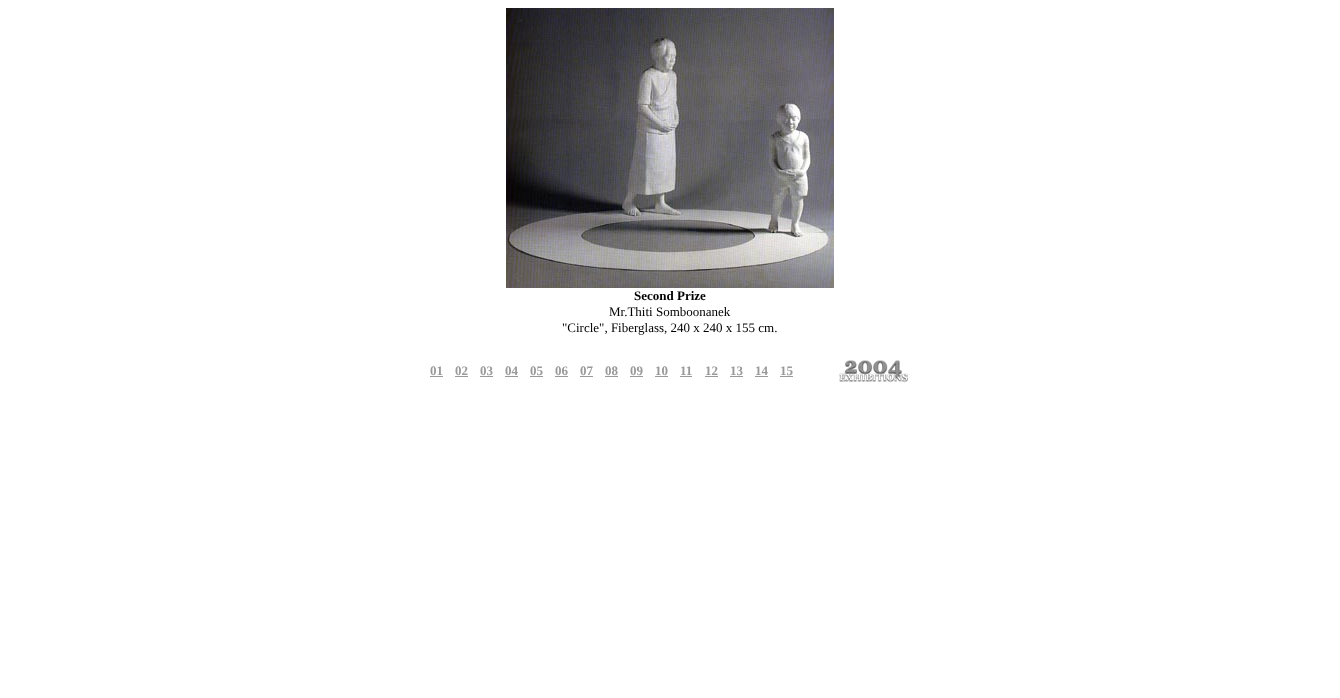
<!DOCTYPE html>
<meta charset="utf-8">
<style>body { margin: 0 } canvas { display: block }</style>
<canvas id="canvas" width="1340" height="698"></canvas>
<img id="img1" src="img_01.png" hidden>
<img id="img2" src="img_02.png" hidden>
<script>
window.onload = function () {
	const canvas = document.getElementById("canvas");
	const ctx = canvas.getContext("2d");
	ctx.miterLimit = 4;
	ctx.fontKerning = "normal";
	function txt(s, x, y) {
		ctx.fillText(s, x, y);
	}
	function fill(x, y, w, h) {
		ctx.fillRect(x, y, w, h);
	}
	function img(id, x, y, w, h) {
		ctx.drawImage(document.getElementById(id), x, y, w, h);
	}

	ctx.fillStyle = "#FFFFFF";
	fill(0, 0, 1340, 698);
	img("img1", 506, 8, 328, 280);
	ctx.fillStyle = "#999999";
	fill(430, 376, 13, 1);
	fill(455, 376, 13, 1);
	fill(480, 376, 13, 1);
	fill(505, 376, 13, 1);
	fill(530, 376, 13, 1);
	fill(555, 376, 13, 1);
	fill(580, 376, 13, 1);
	fill(605, 376, 13, 1);
	fill(630, 376, 13, 1);
	fill(655, 376, 13, 1);
	fill(680, 376, 12, 1);
	fill(705, 376, 13, 1);
	fill(730, 376, 13, 1);
	fill(755, 376, 13, 1);
	fill(780, 376, 13, 1);
	img("img2", 839, 360, 69, 23);
	ctx.font = "bold 13px Liberation Serif";
	ctx.fillStyle = "#000000";
	txt("Second Prize", 634, 300);
	ctx.font = "13px Liberation Serif";
	txt("Mr.Thiti Somboonanek", 609, 316);
	txt("\"Circle\", Fiberglass, 240 x 240 x 155 cm.", 562, 332);
	ctx.font = "bold 13px Liberation Serif";
	ctx.fillStyle = "#999999";
	txt("01", 430, 375);
	txt("02", 455, 375);
	txt("03", 480, 375);
	txt("04", 505, 375);
	txt("05", 530, 375);
	txt("06", 555, 375);
	txt("07", 580, 375);
	txt("08", 605, 375);
	txt("09", 630, 375);
	txt("10", 655, 375);
	txt("11", 680, 375);
	txt("12", 705, 375);
	txt("13", 730, 375);
	txt("14", 755, 375);
	txt("15", 780, 375);
};
</script>
